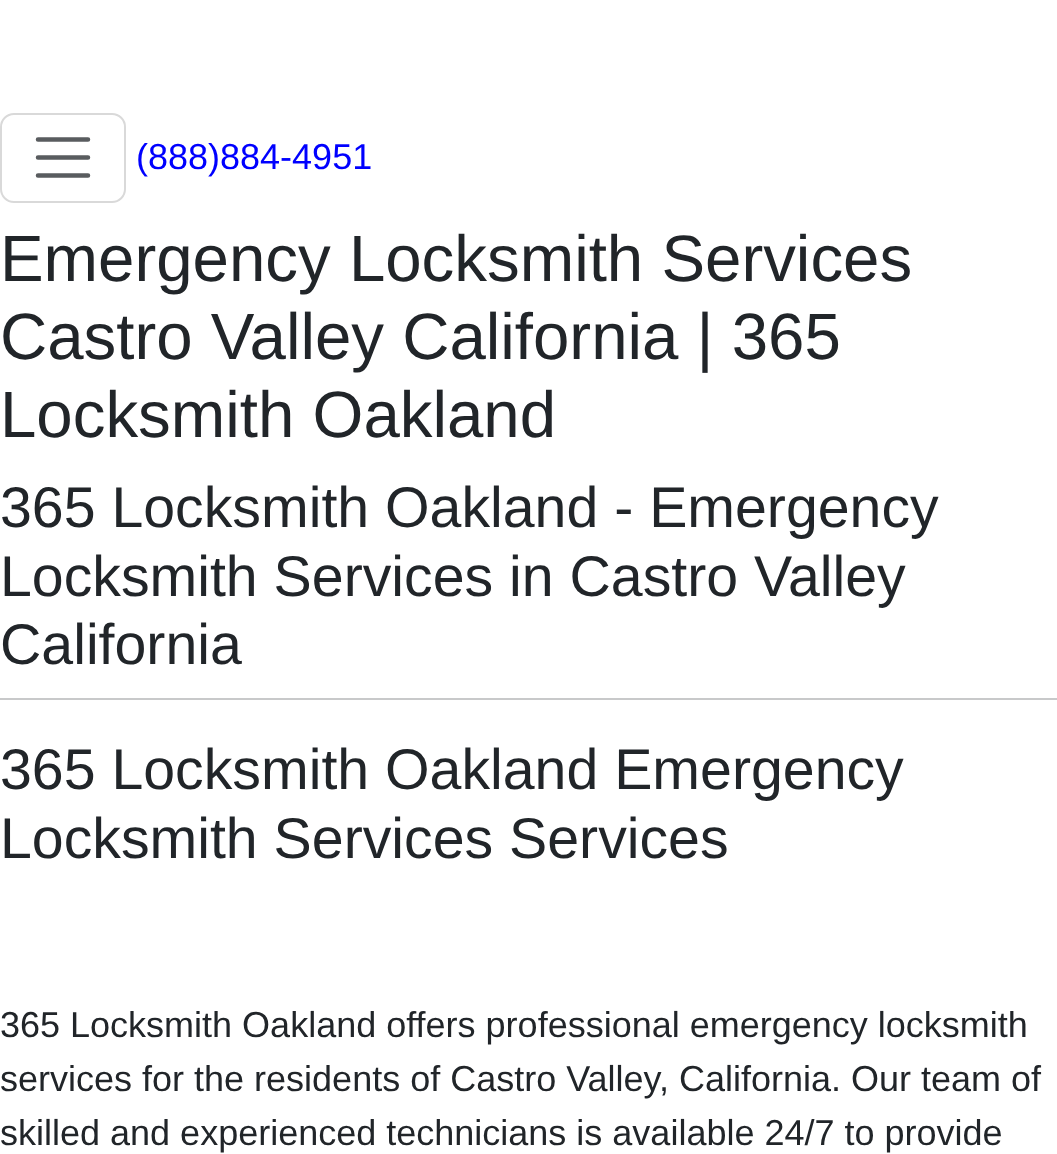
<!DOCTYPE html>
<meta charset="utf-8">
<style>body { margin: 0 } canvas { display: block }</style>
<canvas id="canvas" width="1057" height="1154"></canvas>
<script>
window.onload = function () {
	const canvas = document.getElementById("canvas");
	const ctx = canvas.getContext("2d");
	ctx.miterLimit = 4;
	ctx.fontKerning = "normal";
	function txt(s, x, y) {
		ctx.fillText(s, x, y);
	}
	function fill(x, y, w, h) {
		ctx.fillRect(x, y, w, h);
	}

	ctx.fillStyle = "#FFFFFF";
	fill(0, 0, 1057, 1154);
	ctx.beginPath();
	ctx.roundRect(1, 114, 124, 88, 13);
	ctx.strokeStyle = "#D9D9D9";
	ctx.lineWidth = 2;
	ctx.stroke();
	ctx.beginPath();
	ctx.moveTo(38, 139.5);
	ctx.lineTo(88, 139.5);
	ctx.moveTo(38, 157.5);
	ctx.lineTo(88, 157.5);
	ctx.moveTo(38, 175.5);
	ctx.lineTo(88, 175.5);
	ctx.strokeStyle = "#595C5F";
	ctx.lineWidth = 4.5;
	ctx.lineCap = "round";
	ctx.stroke();
	ctx.fillStyle = "#C8C9CA";
	fill(0, 698, 1057, 2);
	ctx.font = "36px Liberation Sans";
	ctx.fillStyle = "#0000FF";
	txt("(888)884-4951", 136, 169);
	ctx.font = "65.4px Liberation Sans";
	ctx.fillStyle = "#212529";
	txt("Emergency Locksmith Services", 0, 281);
	txt("Castro Valley California | 365", 0, 359);
	txt("Locksmith Oakland", 0, 437);
	ctx.font = "57.25px Liberation Sans";
	txt("365 Locksmith Oakland - Emergency", 0, 527);
	txt("Locksmith Services in Castro Valley", 0, 596);
	txt("California", 0, 664);
	txt("365 Locksmith Oakland Emergency", 0, 789);
	txt("Locksmith Services Services", 0, 858);
	ctx.font = "36px Liberation Sans";
	txt("365 Locksmith Oakland offers professional emergency locksmith", 0, 1037);
	txt("services for the residents of Castro Valley, California. Our team of", 0, 1091);
	txt("skilled and experienced technicians is available 24/7 to provide", 0, 1145);
};
</script>
